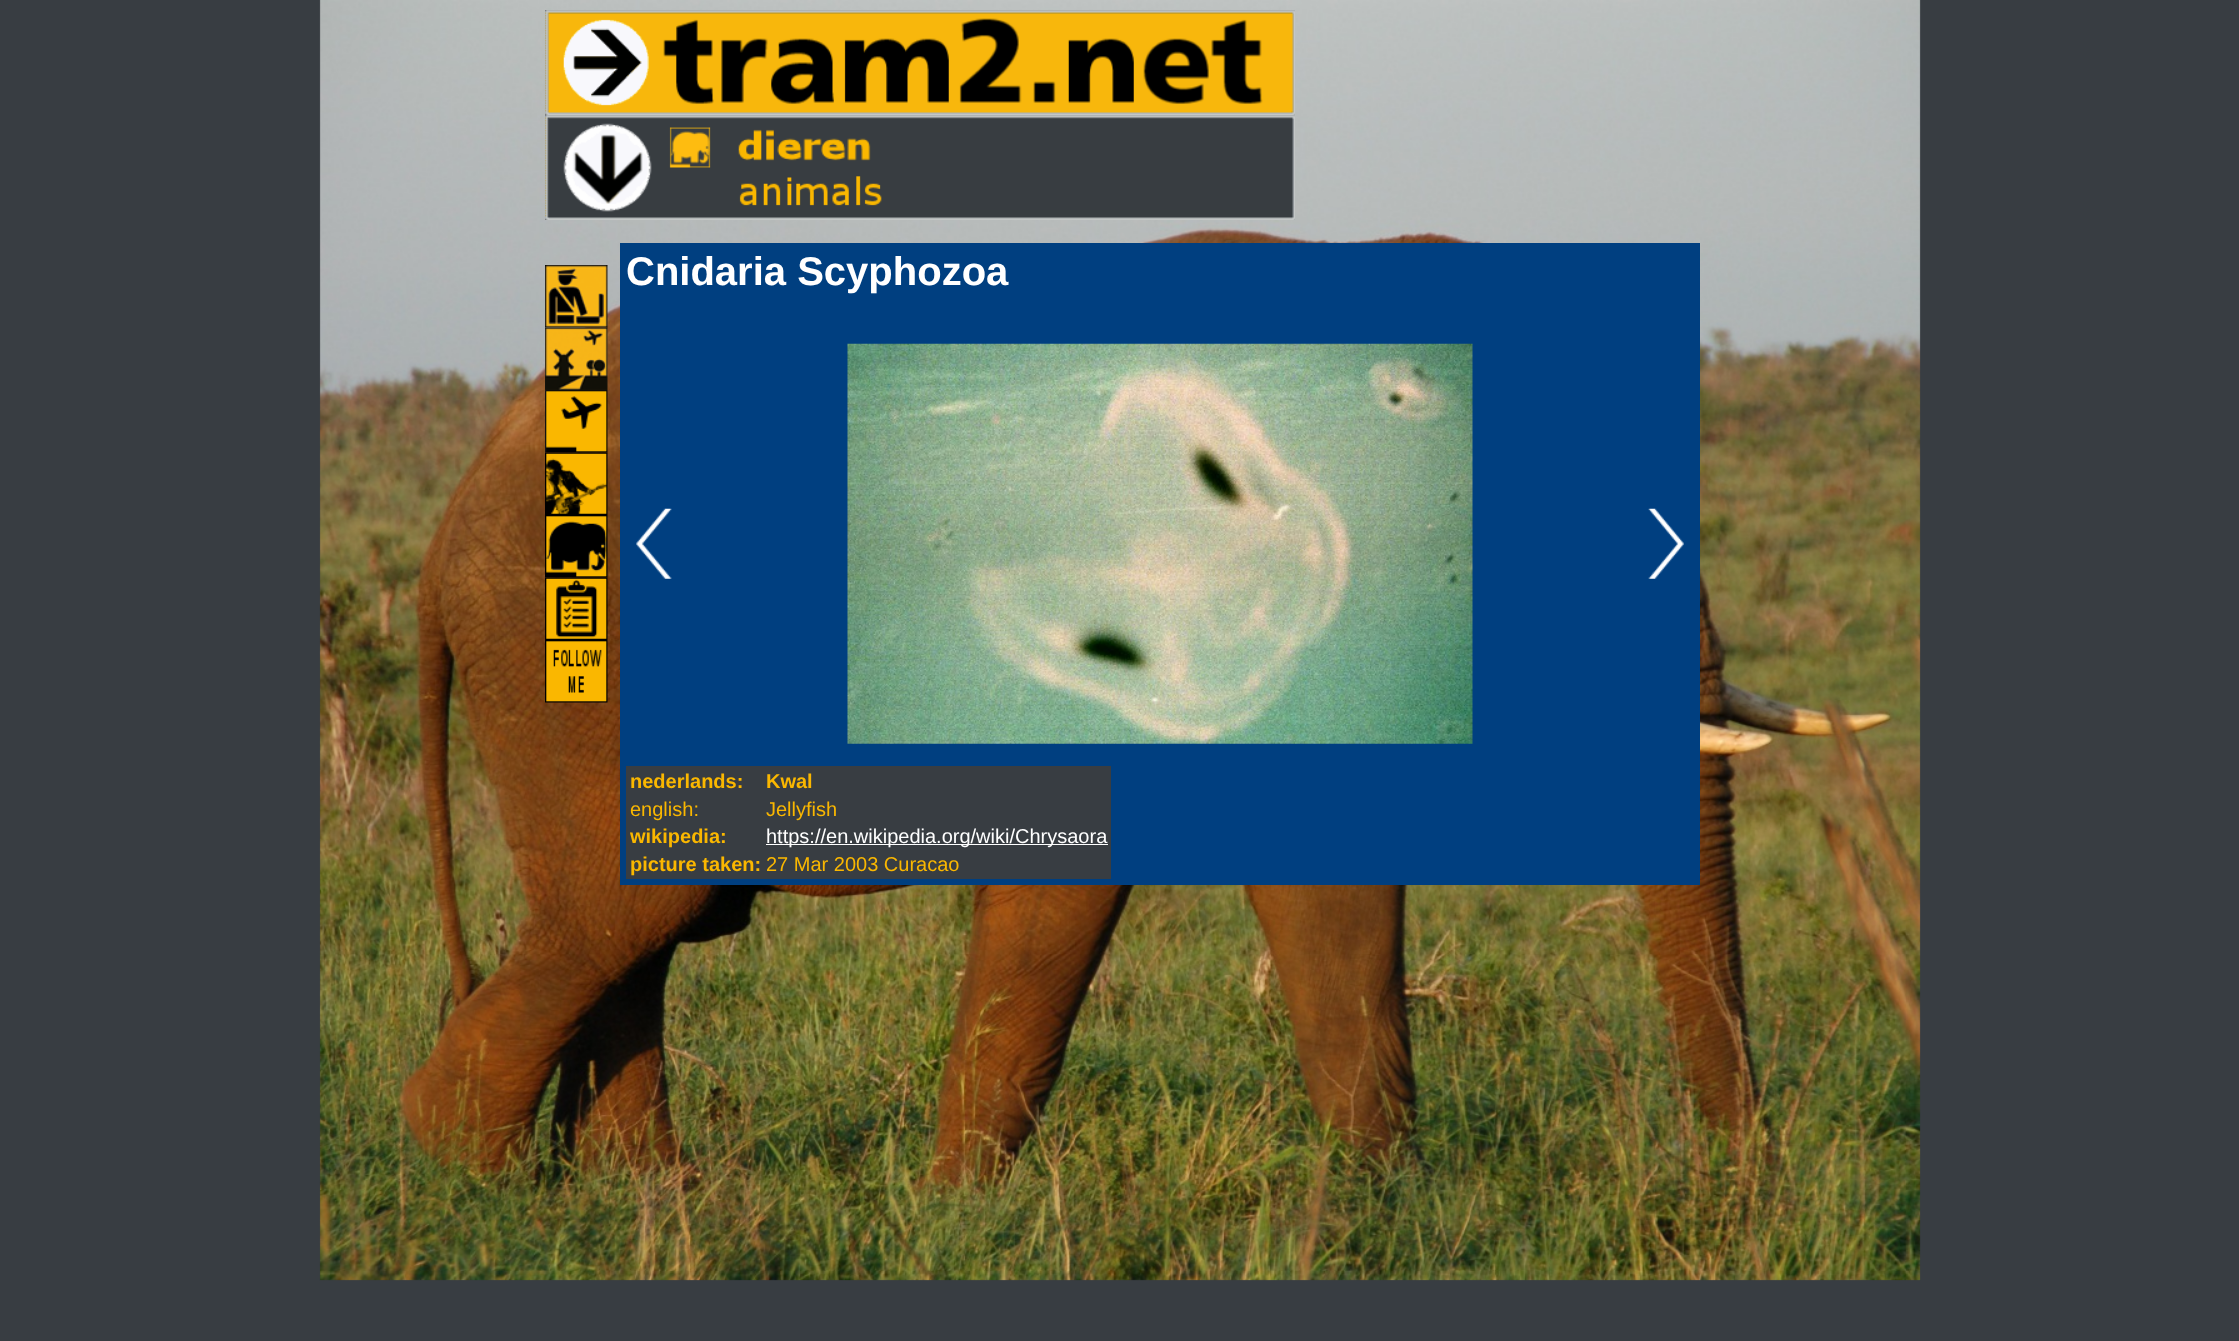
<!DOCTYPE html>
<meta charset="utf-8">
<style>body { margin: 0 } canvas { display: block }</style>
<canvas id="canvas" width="2239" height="1341"></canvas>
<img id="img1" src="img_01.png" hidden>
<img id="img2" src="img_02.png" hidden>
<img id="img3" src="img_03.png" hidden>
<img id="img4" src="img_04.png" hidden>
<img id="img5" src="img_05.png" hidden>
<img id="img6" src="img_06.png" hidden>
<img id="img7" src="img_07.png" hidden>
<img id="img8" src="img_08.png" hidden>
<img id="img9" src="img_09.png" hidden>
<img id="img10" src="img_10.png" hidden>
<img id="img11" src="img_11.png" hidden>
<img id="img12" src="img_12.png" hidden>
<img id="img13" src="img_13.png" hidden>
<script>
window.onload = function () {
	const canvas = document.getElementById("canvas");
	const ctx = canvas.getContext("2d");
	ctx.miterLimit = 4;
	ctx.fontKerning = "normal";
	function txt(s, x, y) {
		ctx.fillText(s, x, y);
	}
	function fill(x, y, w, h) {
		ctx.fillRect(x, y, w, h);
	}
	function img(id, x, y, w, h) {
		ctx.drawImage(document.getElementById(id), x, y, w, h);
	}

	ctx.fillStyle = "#383D42";
	fill(0, 0, 2239, 1341);
	img("img1", 319, 0, 1602, 1281);
	img("img2", 545, 10, 750, 105);
	img("img3", 545, 115, 750, 105);
	img("img4", 545, 265, 63, 63);
	img("img5", 545, 327, 63, 63);
	img("img6", 545, 390, 63, 63);
	img("img7", 545, 452, 63, 63);
	img("img8", 545, 515, 63, 63);
	img("img9", 545, 577, 63, 63);
	img("img10", 545, 640, 63, 63);
	ctx.fillStyle = "#003F80";
	fill(620, 243, 1080, 642);
	img("img11", 636, 508, 36, 71);
	img("img12", 847, 343, 626, 401);
	img("img13", 1648, 508, 36, 71);
	ctx.fillStyle = "#383D42";
	fill(626, 766, 485, 113);
	ctx.fillStyle = "#FFFFFF";
	fill(766, 844, 342, 1);
	ctx.font = "bold 40px Liberation Sans";
	txt("Cnidaria Scyphozoa", 626, 285);
	ctx.font = "bold 20px Liberation Sans";
	ctx.fillStyle = "#FAB700";
	txt("nederlands:", 630, 788);
	txt("Kwal", 766, 788);
	ctx.font = "20px Liberation Sans";
	txt("english:", 630, 816);
	txt("Jellyfish", 766, 816);
	ctx.font = "bold 20px Liberation Sans";
	txt("wikipedia:", 630, 843);
	ctx.font = "20px Liberation Sans";
	ctx.fillStyle = "#FFFFFF";
	txt("https://en.wikipedia.org/wiki/Chrysaora", 766, 843);
	ctx.font = "bold 20px Liberation Sans";
	ctx.fillStyle = "#FAB700";
	txt("picture taken:", 630, 871);
	ctx.font = "20px Liberation Sans";
	txt("27 Mar 2003 Curacao", 766, 871);
};
</script>
